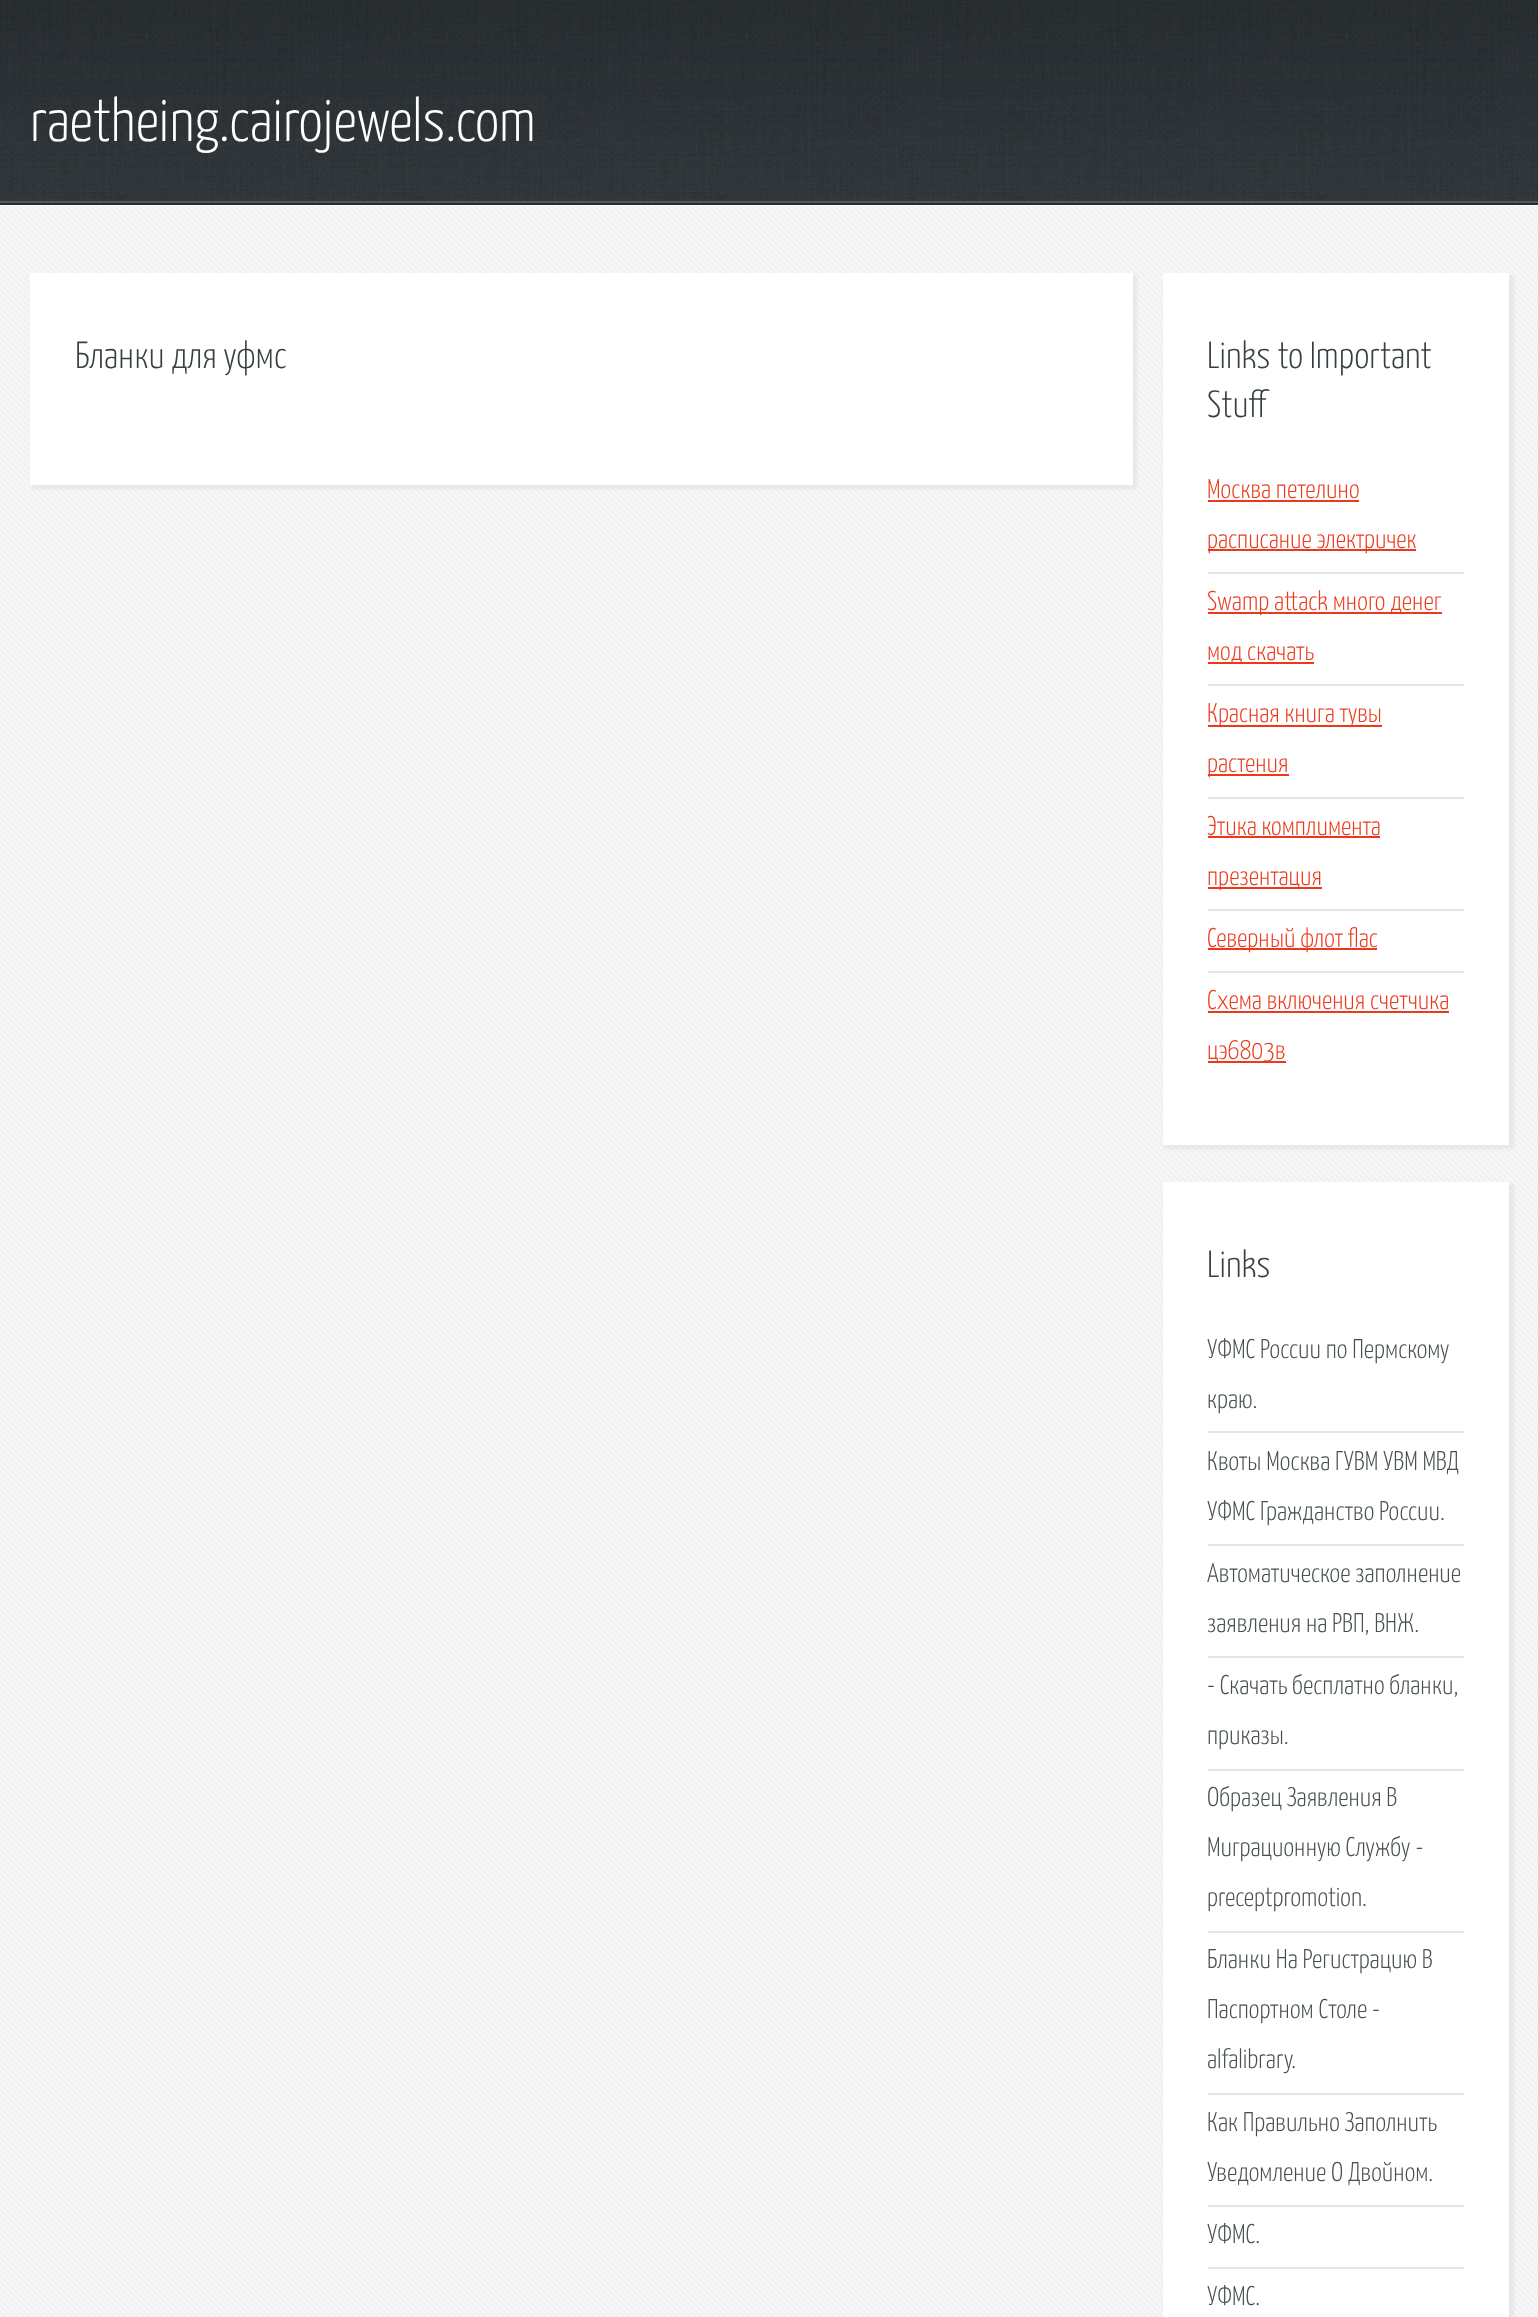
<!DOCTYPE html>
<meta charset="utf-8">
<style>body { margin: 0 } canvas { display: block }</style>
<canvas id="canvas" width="1538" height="2317"></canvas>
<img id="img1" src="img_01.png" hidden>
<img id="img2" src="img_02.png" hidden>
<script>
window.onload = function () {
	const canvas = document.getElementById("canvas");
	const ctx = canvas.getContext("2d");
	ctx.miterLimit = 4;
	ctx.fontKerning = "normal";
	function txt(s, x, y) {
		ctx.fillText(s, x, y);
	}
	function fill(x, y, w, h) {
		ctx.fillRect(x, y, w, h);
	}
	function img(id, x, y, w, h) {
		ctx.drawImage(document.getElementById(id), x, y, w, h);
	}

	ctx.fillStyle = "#F7F7F7";
	fill(0, 0, 1538, 2317);
	img("img1", 0, 0, 1538, 201);
	ctx.fillStyle = "#51575A";
	fill(0, 201, 1538, 2);
	ctx.fillStyle = "#272D30";
	fill(0, 203, 1538, 2);
	img("img2", 0, 206, 1538, 2111);
	ctx.fillStyle = "#FFFFFF";
	fill(0, 205, 1538, 1);
	ctx.fillStyle = "rgba(128, 128, 128, 0.1)";
	ctx.filter = "blur(1.5px)";
	ctx.beginPath();
	ctx.rect(32, 275, 1105, 214);
	ctx.fill();
	ctx.filter = "none";
	ctx.fillStyle = "#FFFFFF";
	fill(30, 273, 1103, 212);
	ctx.fillStyle = "rgba(128, 128, 128, 0.1)";
	ctx.filter = "blur(1.5px)";
	ctx.beginPath();
	ctx.rect(1164, 275, 350, 874);
	ctx.fill();
	ctx.filter = "none";
	ctx.fillStyle = "#FFFFFF";
	fill(1163, 273, 346, 872);
	ctx.fillStyle = "#E2E6E8";
	fill(1208, 572, 256, 2);
	ctx.fillStyle = "#ED391B";
	fill(1208, 500, 151, 2);
	fill(1208, 549, 208, 2);
	ctx.fillStyle = "#E2E6E8";
	fill(1208, 684, 256, 2);
	ctx.fillStyle = "#ED391B";
	fill(1208, 612, 234, 2);
	fill(1208, 662, 106, 2);
	ctx.fillStyle = "#E2E6E8";
	fill(1208, 797, 256, 2);
	ctx.fillStyle = "#ED391B";
	fill(1208, 725, 174, 2);
	fill(1208, 774, 81, 2);
	ctx.fillStyle = "#E2E6E8";
	fill(1208, 909, 256, 2);
	ctx.fillStyle = "#ED391B";
	fill(1208, 836, 172, 2);
	fill(1208, 887, 114, 2);
	ctx.fillStyle = "#E2E6E8";
	fill(1208, 971, 256, 2);
	ctx.fillStyle = "#ED391B";
	fill(1208, 948, 169, 2);
	fill(1208, 1011, 241, 2);
	fill(1208, 1061, 78, 2);
	ctx.fillStyle = "rgba(128, 128, 128, 0.1)";
	ctx.filter = "blur(1.5px)";
	ctx.beginPath();
	ctx.rect(1164, 1184, 350, 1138);
	ctx.fill();
	ctx.filter = "none";
	ctx.fillStyle = "#FFFFFF";
	fill(1163, 1182, 346, 1135);
	ctx.fillStyle = "#E2E6E8";
	fill(1208, 1431, 256, 2);
	fill(1208, 1544, 256, 2);
	fill(1208, 1656, 256, 2);
	fill(1208, 1769, 256, 2);
	fill(1208, 1931, 256, 2);
	fill(1208, 2093, 256, 2);
	fill(1208, 2205, 256, 2);
	fill(1208, 2267, 256, 2);
	ctx.font = "300 60.75px Yanone Kaffeesatz";
	ctx.fillStyle = "#FFFFFF";
	txt("raetheing.cairojewels.com", 30, 141);
	ctx.font = "300 37.75px Yanone Kaffeesatz";
	ctx.fillStyle = "#373F42";
	txt("Бланки для уфмс", 75, 368);
	txt("Links to Important", 1207, 368);
	txt("Stuff", 1207, 417);
	ctx.font = "300 27px Yanone Kaffeesatz";
	ctx.fillStyle = "#ED391B";
	txt("Москва петелино", 1207, 498);
	txt("расписание электричек", 1207, 548);
	txt("Swamp attack много денег", 1207, 610);
	txt("мод скачать", 1207, 660);
	txt("Красная книга тувы", 1207, 722);
	txt("растения", 1207, 772);
	txt("Этика комплимента", 1207, 835);
	txt("презентация", 1207, 885);
	txt("Северный флот flac", 1207, 947);
	txt("Схема включения счетчика", 1207, 1009);
	txt("цэ6803в", 1207, 1059);
	ctx.font = "300 37.75px Yanone Kaffeesatz";
	ctx.fillStyle = "#373F42";
	txt("Links", 1207, 1277);
	ctx.font = "300 27px Yanone Kaffeesatz";
	ctx.fillStyle = "#474F51";
	txt("УФМС России по Пермскому", 1207, 1358);
	txt("краю.", 1207, 1408);
	txt("Квоты Москва ГУВМ УВМ МВД", 1207, 1470);
	txt("УФМС Гражданство России.", 1207, 1520);
	txt("Автоматическое заполнение", 1207, 1582);
	txt("заявления на РВП, ВНЖ.", 1207, 1632);
	txt("- Скачать бесплатно бланки,", 1207, 1694);
	txt("приказы.", 1207, 1744);
	txt("Образец Заявления В", 1207, 1806);
	txt("Миграционную Службу -", 1207, 1856);
	txt("preceptpromotion.", 1207, 1906);
	txt("Бланки На Регистрацию В", 1207, 1968);
	txt("Паспортном Столе -", 1207, 2018);
	txt("alfalibrary.", 1207, 2068);
	txt("Как Правильно Заполнить", 1207, 2131);
	txt("Уведомление О Двойном.", 1207, 2181);
	txt("УФМС.", 1207, 2243);
	txt("УФМС.", 1207, 2305);
};
</script>
